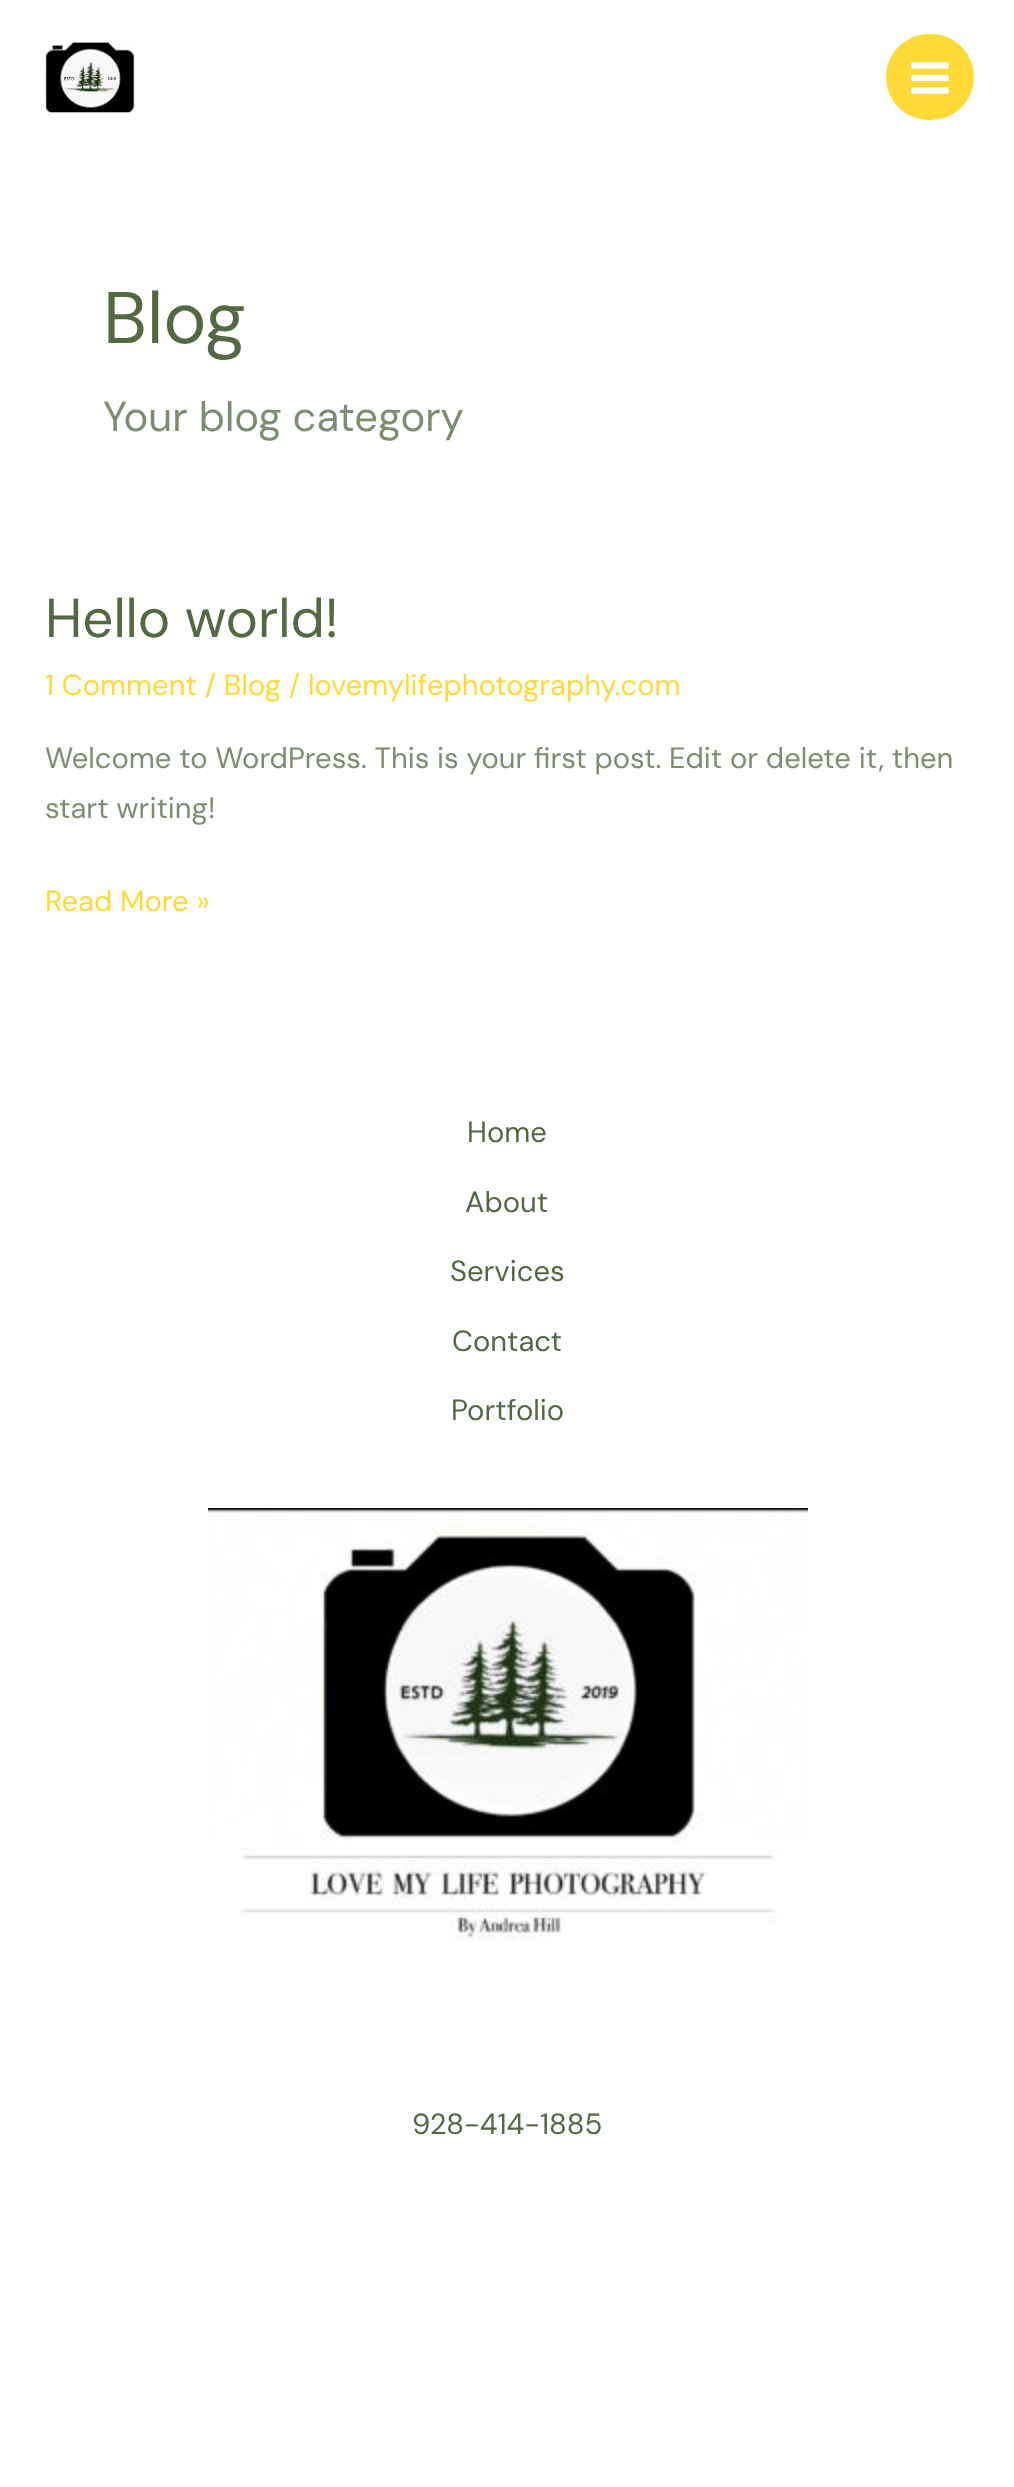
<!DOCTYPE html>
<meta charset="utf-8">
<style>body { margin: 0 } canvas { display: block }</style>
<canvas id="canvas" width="1014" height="2487"></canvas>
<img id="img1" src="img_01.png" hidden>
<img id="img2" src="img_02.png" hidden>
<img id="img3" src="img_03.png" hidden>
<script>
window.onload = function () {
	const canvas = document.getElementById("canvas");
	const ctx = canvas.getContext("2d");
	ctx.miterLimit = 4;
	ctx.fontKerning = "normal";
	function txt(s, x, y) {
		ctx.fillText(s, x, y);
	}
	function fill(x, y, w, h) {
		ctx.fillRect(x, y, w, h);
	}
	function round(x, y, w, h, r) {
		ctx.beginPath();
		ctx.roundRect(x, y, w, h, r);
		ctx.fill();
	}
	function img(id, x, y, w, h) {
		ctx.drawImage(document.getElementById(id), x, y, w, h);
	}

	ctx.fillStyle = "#FFFFFF";
	fill(0, 0, 1014, 2487);
	img("img1", 44, 40, 91, 73);
	ctx.fillStyle = "#FFD936";
	round(886, 34, 88, 86, 43);
	img("img2", 911, 62, 38, 32);
	img("img3", 208, 1508, 600, 432);
	ctx.font = "73px DM Sans";
	ctx.fillStyle = "#536942";
	txt("Blog", 103, 343);
	ctx.font = "41.75px DM Sans";
	ctx.fillStyle = "#7D8E70";
	txt("Your blog category", 103, 431);
	ctx.font = "54.75px DM Sans";
	ctx.fillStyle = "#536942";
	txt("Hello world!", 45, 637);
	ctx.font = "29.2px DM Sans";
	ctx.fillStyle = "#FFD936";
	txt("1 Comment / Blog / lovemylifephotography.com", 45, 695);
	ctx.fillStyle = "#7D8E70";
	txt("Welcome to WordPress. This is your first post. Edit or delete it, then", 45, 768);
	txt("start writing!", 45, 818);
	ctx.fillStyle = "#FFD936";
	txt("Read More »", 45, 911);
	ctx.fillStyle = "#536942";
	txt("Home", 467, 1142);
	txt("About", 465, 1212);
	txt("Services", 450, 1281);
	txt("Contact", 452, 1351);
	txt("Portfolio", 451, 1420);
	txt("928-414-1885", 412, 2134);
};
</script>
